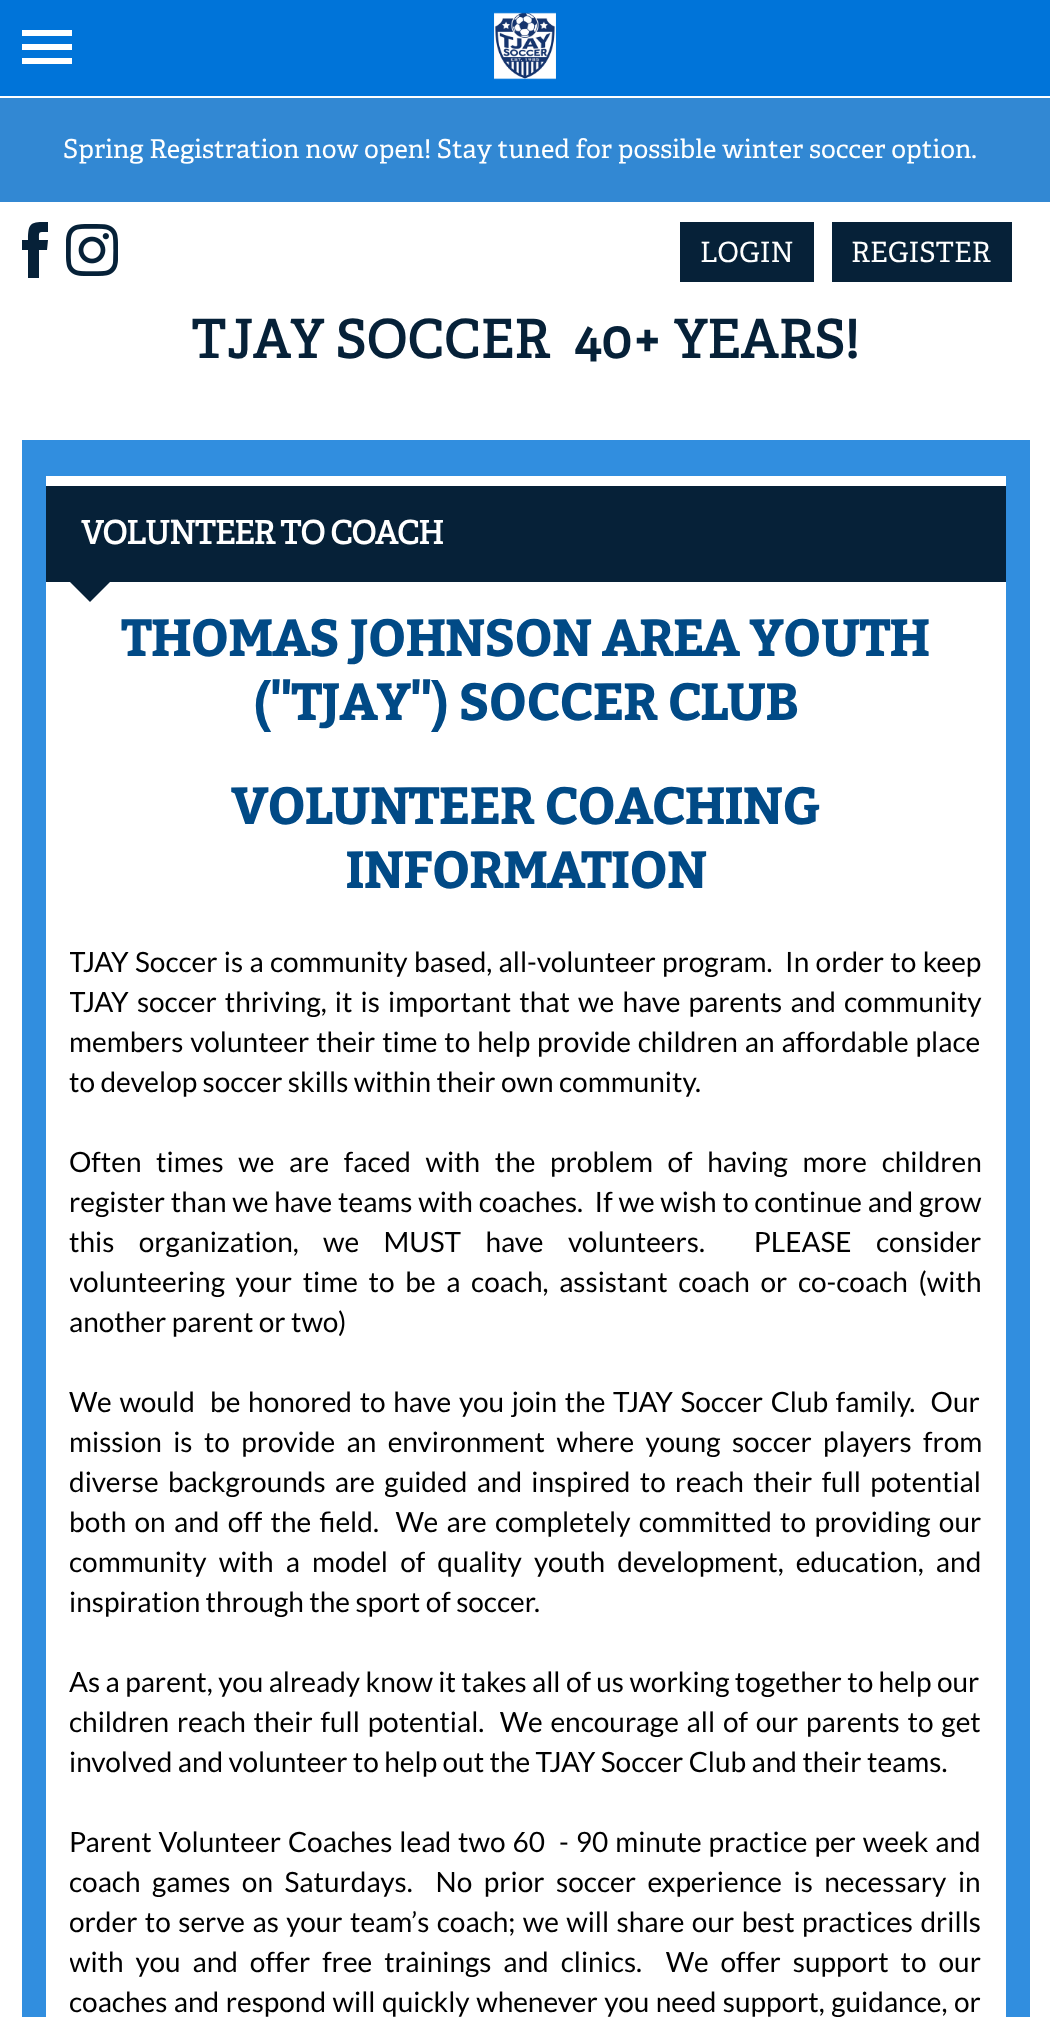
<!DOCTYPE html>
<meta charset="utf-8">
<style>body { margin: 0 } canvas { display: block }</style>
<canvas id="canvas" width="1050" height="2017"></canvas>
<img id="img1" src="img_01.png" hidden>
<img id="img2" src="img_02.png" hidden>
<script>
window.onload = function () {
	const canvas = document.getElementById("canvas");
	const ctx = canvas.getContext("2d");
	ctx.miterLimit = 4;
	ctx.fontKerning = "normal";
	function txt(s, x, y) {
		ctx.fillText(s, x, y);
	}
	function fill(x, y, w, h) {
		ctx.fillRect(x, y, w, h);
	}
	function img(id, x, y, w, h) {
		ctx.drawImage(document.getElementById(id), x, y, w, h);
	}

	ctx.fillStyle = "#FFFFFF";
	fill(0, 0, 1050, 2017);
	ctx.fillStyle = "#0074D9";
	fill(0, 0, 1050, 96);
	ctx.fillStyle = "#FFFFFF";
	ctx.beginPath();
	ctx.moveTo(22, 30);
	ctx.lineTo(72, 30);
	ctx.lineTo(72, 36);
	ctx.lineTo(22, 36);
	ctx.closePath();
	ctx.moveTo(22, 44);
	ctx.lineTo(72, 44);
	ctx.lineTo(72, 50);
	ctx.lineTo(22, 50);
	ctx.closePath();
	ctx.moveTo(22, 58);
	ctx.lineTo(72, 58);
	ctx.lineTo(72, 64);
	ctx.lineTo(22, 64);
	ctx.closePath();
	ctx.fill();
	img("img1", 494, 12, 62, 68);
	ctx.fillStyle = "#3288D3";
	fill(0, 98, 1050, 104);
	ctx.fillStyle = "#062138";
	ctx.beginPath();
	ctx.moveTo(47, 250);
	ctx.lineTo(39, 250);
	ctx.lineTo(39, 278);
	ctx.lineTo(28, 278);
	ctx.lineTo(28, 250);
	ctx.lineTo(22, 250);
	ctx.lineTo(22, 240);
	ctx.lineTo(28, 240);
	ctx.bezierCurveTo(28, 222, 31, 222, 48, 222);
	ctx.lineTo(48, 232);
	ctx.bezierCurveTo(38, 232, 39, 231, 39, 240);
	ctx.lineTo(48, 240);
	ctx.closePath();
	ctx.fill();
	img("img2", 66, 224, 52, 52);
	fill(680, 222, 134, 60);
	fill(832, 222, 180, 60);
	ctx.fillStyle = "#318EDF";
	fill(22, 440, 1008, 1577);
	ctx.fillStyle = "#062138";
	fill(46, 486, 960, 96);
	ctx.fillStyle = "#FFFFFF";
	fill(46, 476, 960, 10);
	fill(46, 582, 960, 1435);
	ctx.fillStyle = "#062138";
	ctx.beginPath();
	ctx.moveTo(70, 582);
	ctx.lineTo(110, 582);
	ctx.lineTo(90, 602);
	ctx.closePath();
	ctx.fill();
	ctx.font = "26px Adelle";
	ctx.fillStyle = "#FFFFFF";
	txt("Spring Registration now open! Stay tuned for possible winter soccer option.", 63, 158);
	ctx.font = "28px Adelle";
	txt("LOGIN", 700, 262);
	txt("REGISTER", 851, 262);
	ctx.letterSpacing = "0.6px";
	ctx.font = "bold 52px Adelle";
	ctx.fillStyle = "#062138";
	txt("TJAY SOCCER", 191, 358);
	txt("40+ YEARS!", 574, 358);
	ctx.letterSpacing = "-1px";
	ctx.font = "bold 32px Adelle";
	ctx.fillStyle = "#FFFFFF";
	txt("VOLUNTEER TO COACH", 81, 544);
	ctx.letterSpacing = "-1.55px";
	ctx.font = "bold 52px Bitter";
	ctx.fillStyle = "#014A86";
	txt("THOMAS JOHNSON AREA YOUTH", 121, 656);
	txt("(\"TJAY\") SOCCER CLUB", 253, 720);
	txt("VOLUNTEER COACHING", 231, 824);
	txt("INFORMATION", 345, 888);
	ctx.save();
	ctx.beginPath();
	ctx.rect(70, 606, 912, 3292);
	ctx.clip();
	ctx.letterSpacing = "0px";
	ctx.wordSpacing = "0.9px";
	ctx.font = "28px Lato";
	ctx.fillStyle = "#000000";
	txt("TJAY Soccer is a community based, all-volunteer program.  In order to keep", 69, 972);
	ctx.wordSpacing = "2.75px";
	txt("TJAY soccer thriving, it is important that we have parents and community", 69, 1012);
	ctx.restore();
	ctx.letterSpacing = "0px";
	ctx.wordSpacing = "1.5px";
	ctx.font = "28px Lato";
	ctx.fillStyle = "#000000";
	txt("members volunteer their time to help provide children an affordable place", 69, 1052);
	ctx.wordSpacing = "0px";
	txt("to develop soccer skills within their own community.", 69, 1092);
	ctx.wordSpacing = "9.25px";
	txt("Often times we are faced with the problem of having more children", 69, 1172);
	ctx.wordSpacing = "0.4px";
	txt("register than we have teams with coaches.  If we wish to continue and grow", 69, 1212);
	ctx.wordSpacing = "19px";
	txt("this organization, we MUST have volunteers.  PLEASE consider", 69, 1252);
	ctx.save();
	ctx.beginPath();
	ctx.rect(70, 606, 912, 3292);
	ctx.clip();
	ctx.wordSpacing = "5.25px";
	txt("volunteering your time to be a coach, assistant coach or co-coach (with", 69, 1292);
	ctx.restore();
	ctx.wordSpacing = "0px";
	txt("another parent or two)", 69, 1332);
	ctx.wordSpacing = "2.25px";
	txt("We would  be honored to have you join the TJAY Soccer Club family.  Our", 69, 1412);
	ctx.wordSpacing = "6px";
	txt("mission is to provide an environment where young soccer players from", 69, 1452);
	ctx.wordSpacing = "3.9px";
	txt("diverse backgrounds are guided and inspired to reach their full potential", 69, 1492);
	ctx.wordSpacing = "2.9px";
	txt("both on and off the field.  We are completely committed to providing our", 69, 1532);
	ctx.wordSpacing = "6.75px";
	txt("community with a model of quality youth development, education, and", 69, 1572);
	ctx.wordSpacing = "0px";
	txt("inspiration through the sport of soccer.", 69, 1612);
	txt("As a parent, you already know it takes all of us working together to help our", 69, 1692);
	ctx.wordSpacing = "2.4px";
	txt("children reach their full potential.  We encourage all of our parents to get", 69, 1732);
	ctx.wordSpacing = "0px";
	txt("involved and volunteer to help out the TJAY Soccer Club and their teams.", 69, 1772);
	ctx.wordSpacing = "1.6px";
	txt("Parent Volunteer Coaches lead two 60  - 90 minute practice per week and", 69, 1852);
	ctx.wordSpacing = "6.1px";
	txt("coach games on Saturdays.  No prior soccer experience is necessary in", 69, 1892);
	ctx.wordSpacing = "2px";
	txt("order to serve as your team’s coach; we will share our best practices drills", 69, 1932);
	ctx.save();
	ctx.beginPath();
	ctx.rect(70, 606, 912, 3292);
	ctx.clip();
	ctx.wordSpacing = "6.5px";
	txt("with you and offer free trainings and clinics.  We offer support to our", 69, 1972);
	ctx.restore();
	ctx.wordSpacing = "1.1px";
	txt("coaches and respond will quickly whenever you need support, guidance, or", 69, 2012);
};
</script>
